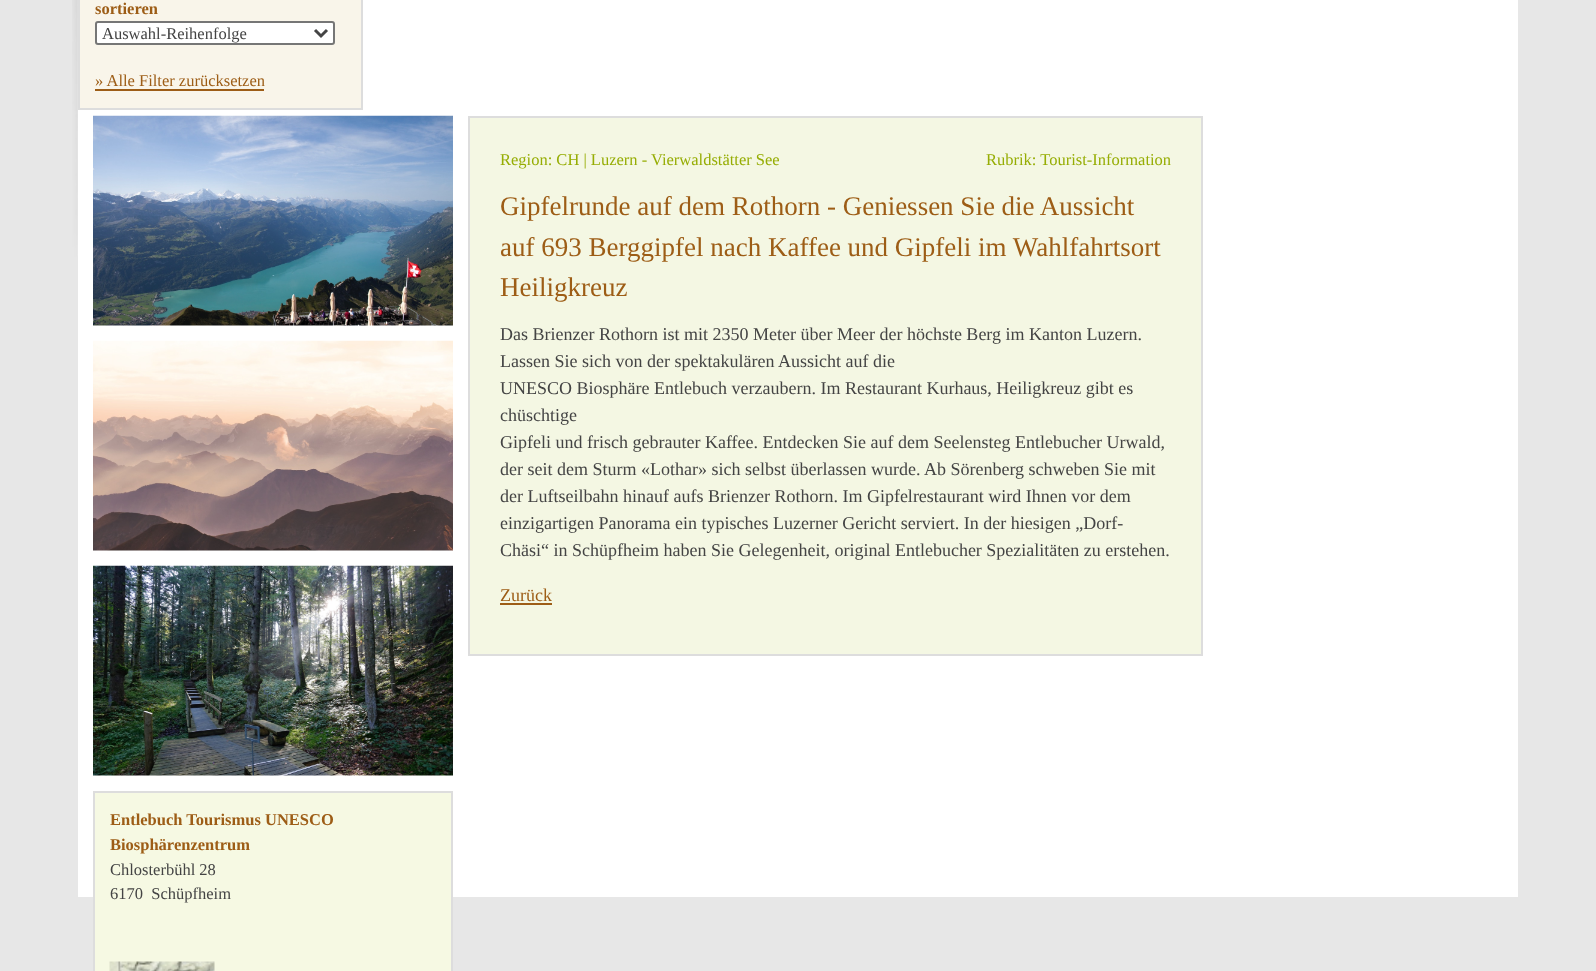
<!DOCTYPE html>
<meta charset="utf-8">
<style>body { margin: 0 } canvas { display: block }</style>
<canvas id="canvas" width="1596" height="971"></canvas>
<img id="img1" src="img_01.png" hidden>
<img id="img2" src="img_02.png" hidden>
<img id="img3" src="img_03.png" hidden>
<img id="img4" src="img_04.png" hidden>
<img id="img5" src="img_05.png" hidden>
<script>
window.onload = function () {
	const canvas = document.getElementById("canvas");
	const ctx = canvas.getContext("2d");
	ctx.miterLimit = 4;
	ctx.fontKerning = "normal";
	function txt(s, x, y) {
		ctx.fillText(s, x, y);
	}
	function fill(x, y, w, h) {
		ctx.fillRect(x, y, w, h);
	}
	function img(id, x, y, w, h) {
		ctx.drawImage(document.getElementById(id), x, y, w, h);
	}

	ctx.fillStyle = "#E7E7E7";
	fill(0, 0, 1596, 971);
	img("img1", 72, 0, 6, 257);
	ctx.fillStyle = "#FFFFFF";
	fill(78, 0, 1440, 897);
	ctx.fillStyle = "#F9F5EA";
	ctx.beginPath();
	ctx.rect(79, -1, 283, 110);
	ctx.fill();
	ctx.strokeStyle = "#DDDDDD";
	ctx.lineWidth = 2;
	ctx.stroke();
	ctx.fillStyle = "#FFFFFF";
	ctx.beginPath();
	ctx.roundRect(96, 22, 238, 22, 2);
	ctx.fill();
	ctx.strokeStyle = "#767676";
	ctx.stroke();
	ctx.beginPath();
	ctx.moveTo(315, 30);
	ctx.lineTo(321, 36);
	ctx.lineTo(327, 30);
	ctx.strokeStyle = "#444444";
	ctx.lineWidth = 3;
	ctx.stroke();
	ctx.fillStyle = "#9D5D16";
	fill(95, 89, 169, 2);
	ctx.fillStyle = "#F4F7E3";
	ctx.beginPath();
	ctx.rect(469, 117, 733, 538);
	ctx.fill();
	ctx.strokeStyle = "#DDDDDD";
	ctx.lineWidth = 2;
	ctx.stroke();
	ctx.fillStyle = "#9D5D16";
	fill(500, 603, 52, 2);
	img("img2", 93, 115, 360, 211);
	img("img3", 93, 340, 360, 211);
	img("img4", 93, 565, 360, 211);
	ctx.fillStyle = "#F6F9E3";
	ctx.beginPath();
	ctx.rect(94, 792, 358, 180);
	ctx.fill();
	ctx.stroke();
	img("img5", 109, 961, 106, 10);
	ctx.font = "bold 16.5px Liberation Serif";
	ctx.fillStyle = "#9D5D16";
	txt("sortieren", 95, 14);
	ctx.font = "16.5px Liberation Serif";
	ctx.fillStyle = "#444444";
	txt("Auswahl-Reihenfolge", 102, 39);
	ctx.fillStyle = "#9D5D16";
	txt("» Alle Filter zurücksetzen", 95, 86);
	ctx.fillStyle = "#96AD04";
	txt("Region: CH | Luzern - Vierwaldstätter See", 500, 165);
	txt("Rubrik: Tourist-Information", 986, 165);
	ctx.font = "27px Liberation Serif";
	ctx.fillStyle = "#9D5D16";
	txt("Gipfelrunde auf dem Rothorn - Geniessen Sie die Aussicht", 500, 215);
	txt("auf 693 Berggipfel nach Kaffee und Gipfeli im Wahlfahrtsort", 500, 256);
	txt("Heiligkreuz", 500, 296);
	ctx.font = "18px Liberation Serif";
	ctx.fillStyle = "#444444";
	txt("Das Brienzer Rothorn ist mit 2350 Meter über Meer der höchste Berg im Kanton Luzern.", 500, 340);
	txt("Lassen Sie sich von der spektakulären Aussicht auf die", 500, 367);
	txt("UNESCO Biosphäre Entlebuch verzaubern. Im Restaurant Kurhaus, Heiligkreuz gibt es", 500, 394);
	txt("chüschtige", 500, 421);
	txt("Gipfeli und frisch gebrauter Kaffee. Entdecken Sie auf dem Seelensteg Entlebucher Urwald,", 500, 448);
	txt("der seit dem Sturm «Lothar» sich selbst überlassen wurde. Ab Sörenberg schweben Sie mit", 500, 475);
	txt("der Luftseilbahn hinauf aufs Brienzer Rothorn. Im Gipfelrestaurant wird Ihnen vor dem", 500, 502);
	txt("einzigartigen Panorama ein typisches Luzerner Gericht serviert. In der hiesigen „Dorf-", 500, 529);
	txt("Chäsi“ in Schüpfheim haben Sie Gelegenheit, original Entlebucher Spezialitäten zu erstehen.", 500, 556);
	ctx.fillStyle = "#9D5D16";
	txt("Zurück", 500, 601);
	ctx.font = "bold 16.5px Liberation Serif";
	txt("Entlebuch Tourismus UNESCO", 110, 825);
	txt("Biosphärenzentrum", 110, 850);
	ctx.font = "16.5px Liberation Serif";
	ctx.fillStyle = "#444444";
	txt("Chlosterbühl 28", 110, 875);
	txt("6170  Schüpfheim", 110, 899);
};
</script>
